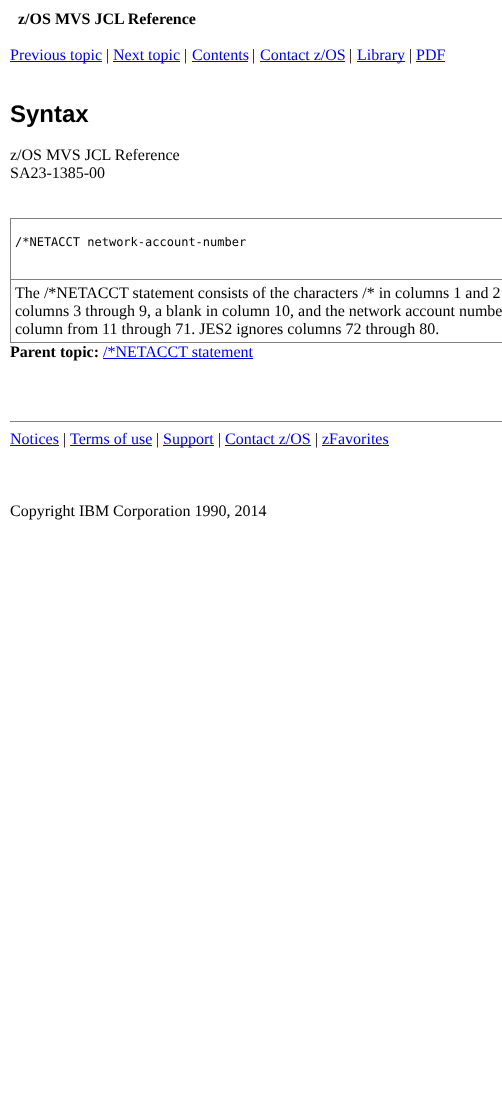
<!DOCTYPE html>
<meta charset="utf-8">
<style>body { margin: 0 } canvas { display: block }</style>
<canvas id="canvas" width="502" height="1101"></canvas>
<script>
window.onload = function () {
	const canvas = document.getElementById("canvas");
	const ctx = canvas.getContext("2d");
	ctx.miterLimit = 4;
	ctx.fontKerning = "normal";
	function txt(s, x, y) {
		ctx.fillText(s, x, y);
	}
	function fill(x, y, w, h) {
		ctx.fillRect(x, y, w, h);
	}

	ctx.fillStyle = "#FFFFFF";
	fill(0, 0, 502, 1101);
	ctx.fillStyle = "#0000EE";
	fill(10, 61, 92, 1);
	fill(113, 61, 67, 1);
	fill(192, 61, 56, 1);
	fill(260, 61, 85, 1);
	fill(357, 61, 48, 1);
	fill(416, 61, 29, 1);
	ctx.fillStyle = "#808080";
	fill(10, 218, 492, 1);
	fill(10, 342, 492, 1);
	fill(10, 218, 1, 125);
	fill(10, 279, 492, 1);
	ctx.fillStyle = "#0000EE";
	fill(103, 358, 150, 1);
	ctx.fillStyle = "#808080";
	fill(10, 421, 492, 1);
	ctx.fillStyle = "#0000EE";
	fill(10, 445, 49, 1);
	fill(70, 445, 82, 1);
	fill(163, 445, 51, 1);
	fill(225, 445, 86, 1);
	fill(322, 445, 67, 1);
	ctx.font = "bold 16px Liberation Serif";
	ctx.fillStyle = "#000000";
	txt("z/OS MVS JCL Reference", 18, 24);
	ctx.font = "16px Liberation Serif";
	ctx.fillStyle = "#0000EE";
	txt("Previous topic", 10, 60);
	ctx.fillStyle = "#000000";
	txt("|", 106, 60);
	ctx.fillStyle = "#0000EE";
	txt("Next topic", 113, 60);
	ctx.fillStyle = "#000000";
	txt("|", 184, 60);
	ctx.fillStyle = "#0000EE";
	txt("Contents", 192, 60);
	ctx.fillStyle = "#000000";
	txt("|", 252, 60);
	ctx.fillStyle = "#0000EE";
	txt("Contact z/OS", 260, 60);
	ctx.fillStyle = "#000000";
	txt("|", 349, 60);
	ctx.fillStyle = "#0000EE";
	txt("Library", 357, 60);
	ctx.fillStyle = "#000000";
	txt("|", 409, 60);
	ctx.fillStyle = "#0000EE";
	txt("PDF", 416, 60);
	ctx.font = "bold 24px Liberation Sans";
	ctx.fillStyle = "#000000";
	txt("Syntax", 10, 122);
	ctx.font = "16px Liberation Serif";
	txt("z/OS MVS JCL Reference", 10, 160);
	txt("SA23-1385-00", 10, 178);
	ctx.font = "12px DejaVu Sans Mono";
	txt("/*NETACCT network-account-number", 15, 246);
	ctx.font = "16px Liberation Serif";
	txt("The /*NETACCT statement consists of the characters /* in columns 1 and 2", 15, 298);
	txt("columns 3 through 9, a blank in column 10, and the network account numbe", 15, 316);
	txt("column from 11 through 71. JES2 ignores columns 72 through 80.", 15, 334);
	ctx.font = "bold 16px Liberation Serif";
	txt("Parent topic:", 10, 357);
	ctx.font = "16px Liberation Serif";
	ctx.fillStyle = "#0000EE";
	txt("/*NETACCT statement", 103, 357);
	txt("Notices", 10, 444);
	ctx.fillStyle = "#000000";
	txt("|", 63, 444);
	ctx.fillStyle = "#0000EE";
	txt("Terms of use", 70, 444);
	ctx.fillStyle = "#000000";
	txt("|", 156, 444);
	ctx.fillStyle = "#0000EE";
	txt("Support", 163, 444);
	ctx.fillStyle = "#000000";
	txt("|", 218, 444);
	ctx.fillStyle = "#0000EE";
	txt("Contact z/OS", 225, 444);
	ctx.fillStyle = "#000000";
	txt("|", 315, 444);
	ctx.fillStyle = "#0000EE";
	txt("zFavorites", 322, 444);
	ctx.fillStyle = "#000000";
	txt("Copyright IBM Corporation 1990, 2014", 10, 516);
};
</script>
